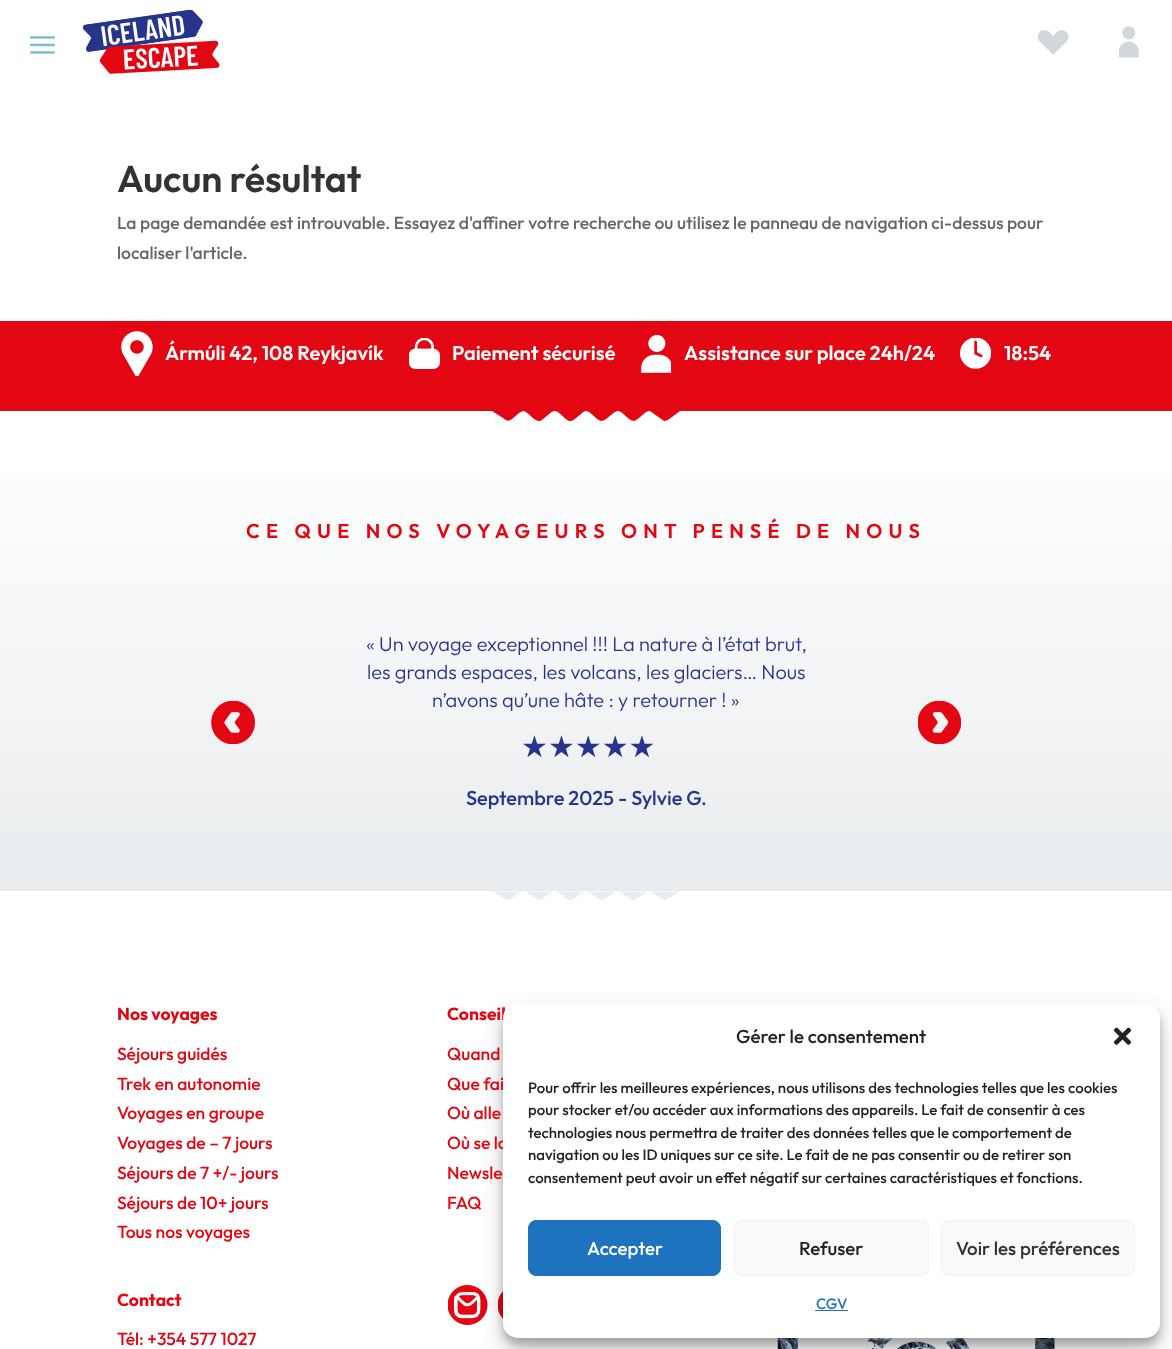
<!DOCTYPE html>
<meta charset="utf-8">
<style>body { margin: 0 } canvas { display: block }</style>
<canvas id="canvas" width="1172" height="1349"></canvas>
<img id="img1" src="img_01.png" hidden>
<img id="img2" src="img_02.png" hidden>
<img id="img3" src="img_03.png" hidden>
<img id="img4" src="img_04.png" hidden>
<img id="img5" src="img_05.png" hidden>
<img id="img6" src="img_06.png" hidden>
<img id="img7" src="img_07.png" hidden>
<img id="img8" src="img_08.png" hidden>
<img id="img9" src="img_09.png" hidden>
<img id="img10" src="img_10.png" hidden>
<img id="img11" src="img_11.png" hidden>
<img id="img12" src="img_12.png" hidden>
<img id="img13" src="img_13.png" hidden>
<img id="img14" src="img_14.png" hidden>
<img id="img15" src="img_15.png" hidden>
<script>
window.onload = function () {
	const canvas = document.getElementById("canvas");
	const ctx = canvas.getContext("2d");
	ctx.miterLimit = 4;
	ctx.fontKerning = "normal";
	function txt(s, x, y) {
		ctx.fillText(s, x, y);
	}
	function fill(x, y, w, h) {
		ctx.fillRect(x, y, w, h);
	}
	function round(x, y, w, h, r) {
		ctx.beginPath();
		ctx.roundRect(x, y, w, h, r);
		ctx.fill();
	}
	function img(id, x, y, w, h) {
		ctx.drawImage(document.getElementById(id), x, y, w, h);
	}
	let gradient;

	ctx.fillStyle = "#FFFFFF";
	fill(0, 0, 1172, 1349);
	img("img1", 30, 36, 25, 18);
	img("img2", 83, 10, 137, 64);
	img("img3", 1038, 30, 31, 25);
	img("img4", 1119, 26, 20, 32);
	ctx.fillStyle = "#E30613";
	fill(0, 321, 1172, 90);
	img("img5", 121, 331, 32, 45);
	img("img6", 409, 338, 31, 31);
	img("img7", 641, 335, 30, 38);
	img("img8", 960, 338, 31, 31);
	ctx.fillStyle = "#E20613";
	ctx.beginPath();
	ctx.moveTo(492, 411);
	ctx.lineTo(680, 411);
	ctx.lineTo(672, 417);
	ctx.bezierCurveTo(669, 419, 667, 421, 664, 421);
	ctx.lineTo(650, 411);
	ctx.bezierCurveTo(645, 410, 639, 420, 634, 421);
	ctx.bezierCurveTo(628, 421, 623, 411, 618, 411);
	ctx.bezierCurveTo(613, 411, 607, 421, 601, 421);
	ctx.bezierCurveTo(596, 420, 591, 411, 586, 411);
	ctx.bezierCurveTo(582, 411, 576, 420, 571, 421);
	ctx.bezierCurveTo(566, 422, 560, 411, 555, 411);
	ctx.bezierCurveTo(550, 411, 545, 419, 540, 421);
	ctx.bezierCurveTo(535, 422, 529, 413, 524, 411);
	ctx.bezierCurveTo(522, 411, 521, 412, 519, 413);
	ctx.lineTo(512, 419);
	ctx.bezierCurveTo(508, 422, 507, 421, 503, 418);
	ctx.closePath();
	ctx.fill();
	gradient = ctx.createLinearGradient(586, 421, 586, 891);
	gradient.addColorStop(0, "#FFFFFF");
	gradient.addColorStop(1, "#E9ECEE");
	ctx.fillStyle = gradient;
	fill(0, 474, 1172, 417);
	img("img9", 211, 701, 44, 43);
	img("img10", 918, 701, 43, 43);
	img("img11", 493, 891, 186, 9);
	img("img12", 448, 1285, 40, 40);
	img("img13", 498, 1291, 5, 28);
	img("img14", 777, 1338, 278, 11);
	ctx.fillStyle = "rgba(0, 0, 0, 0.23)";
	ctx.filter = "blur(4px)";
	ctx.beginPath();
	ctx.roundRect(503, 1010, 657, 335, 15);
	ctx.fill();
	ctx.filter = "none";
	ctx.fillStyle = "rgba(0, 0, 0, 0.19)";
	ctx.filter = "blur(12.5px)";
	ctx.beginPath();
	ctx.roundRect(503, 1015, 657, 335, 15);
	ctx.fill();
	ctx.filter = "none";
	ctx.font = "600 37.5px Outfit";
	ctx.fillStyle = "#333333";
	txt("Aucun résultat", 117, 192);
	ctx.font = "500 17.5px Outfit";
	ctx.fillStyle = "#666666";
	txt("La page demandée est introuvable. Essayez d'affiner votre recherche ou utilisez le panneau de navigation ci-dessus pour", 117, 229);
	txt("localiser l'article.", 117, 259);
	ctx.font = "600 20px Outfit";
	ctx.fillStyle = "#FFFFFF";
	txt("Ármúli 42, 108 Reykjavík", 165, 360);
	txt("Paiement sécurisé", 452, 360);
	txt("Assistance sur place 24h/24", 684, 360);
	txt("18:54", 1004, 360);
	ctx.letterSpacing = "6.25px";
	ctx.fillStyle = "#E30613";
	txt("CE QUE NOS VOYAGEURS ONT PENSÉ DE NOUS", 246, 538);
	ctx.letterSpacing = "0px";
	ctx.font = "300 20px Outfit";
	ctx.fillStyle = "#27348B";
	txt("« Un voyage exceptionnel !!! La nature à l’état brut,", 366, 651);
	txt("les grands espaces, les volcans, les glaciers… Nous", 367, 679);
	txt("n’avons qu’une hâte : y retourner ! »", 432, 707);
	ctx.font = "30px DejaVu Sans";
	txt("★★★★★", 521, 757);
	ctx.font = "500 20px Outfit";
	txt("Septembre 2025 - Sylvie G.", 466, 805);
	ctx.font = "bold 17.5px Outfit";
	ctx.fillStyle = "#E30613";
	txt("Nos voyages", 117, 1020);
	ctx.font = "500 17.5px Outfit";
	txt("Séjours guidés", 117, 1060);
	txt("Trek en autonomie", 117, 1090);
	txt("Voyages en groupe", 117, 1119);
	txt("Voyages de – 7 jours", 117, 1149);
	txt("Séjours de 7 +/- jours", 117, 1179);
	txt("Séjours de 10+ jours", 117, 1209);
	txt("Tous nos voyages", 117, 1238);
	ctx.font = "bold 17.5px Outfit";
	txt("Conseil", 447, 1020);
	ctx.font = "500 17.5px Outfit";
	txt("Quand", 447, 1060);
	txt("Que fai", 447, 1090);
	txt("Où alle", 447, 1119);
	txt("Où se lo", 447, 1149);
	txt("Newsle", 447, 1179);
	txt("FAQ", 447, 1209);
	ctx.font = "bold 17.5px Outfit";
	txt("Contact", 117, 1306);
	ctx.font = "500 17.5px Outfit";
	txt("Tél: +354 577 1027", 117, 1345);
	ctx.fillStyle = "#FFFFFF";
	round(503, 1003, 657, 335, 15);
	ctx.font = "500 18.75px Outfit";
	ctx.fillStyle = "#222222";
	txt("Gérer le consentement", 736, 1043);
	img("img15", 1113, 1027, 19, 18);
	ctx.font = "500 15px Outfit";
	txt("Pour offrir les meilleures expériences, nous utilisons des technologies telles que les cookies", 528, 1093);
	txt("pour stocker et/ou accéder aux informations des appareils. Le fait de consentir à ces", 528, 1115);
	txt("technologies nous permettra de traiter des données telles que le comportement de", 528, 1138);
	txt("navigation ou les ID uniques sur ce site. Le fait de ne pas consentir ou de retirer son", 528, 1160);
	txt("consentement peut avoir un effet négatif sur certaines caractéristiques et fonctions.", 528, 1183);
	ctx.fillStyle = "#1E73BE";
	ctx.beginPath();
	ctx.roundRect(528.5, 1220.5, 192, 55, 7.5);
	ctx.fill();
	ctx.strokeStyle = "#1E73BE";
	ctx.stroke();
	ctx.font = "500 18.75px Outfit";
	ctx.fillStyle = "#FFFFFF";
	txt("Accepter", 587, 1255);
	ctx.fillStyle = "#F9F9F9";
	ctx.beginPath();
	ctx.roundRect(734.5, 1220.5, 194, 55, 7.5);
	ctx.fill();
	ctx.strokeStyle = "#F2F2F2";
	ctx.stroke();
	ctx.fillStyle = "#222222";
	txt("Refuser", 799, 1255);
	ctx.fillStyle = "#F9F9F9";
	ctx.beginPath();
	ctx.roundRect(941.5, 1220.5, 193, 55, 7.5);
	ctx.fill();
	ctx.stroke();
	ctx.fillStyle = "#333333";
	txt("Voir les préférences", 956, 1255);
	ctx.font = "500 15px Outfit";
	ctx.fillStyle = "#1E73BE";
	txt("CGV", 816, 1309);
	fill(815, 1310, 33, 1);
};
</script>
